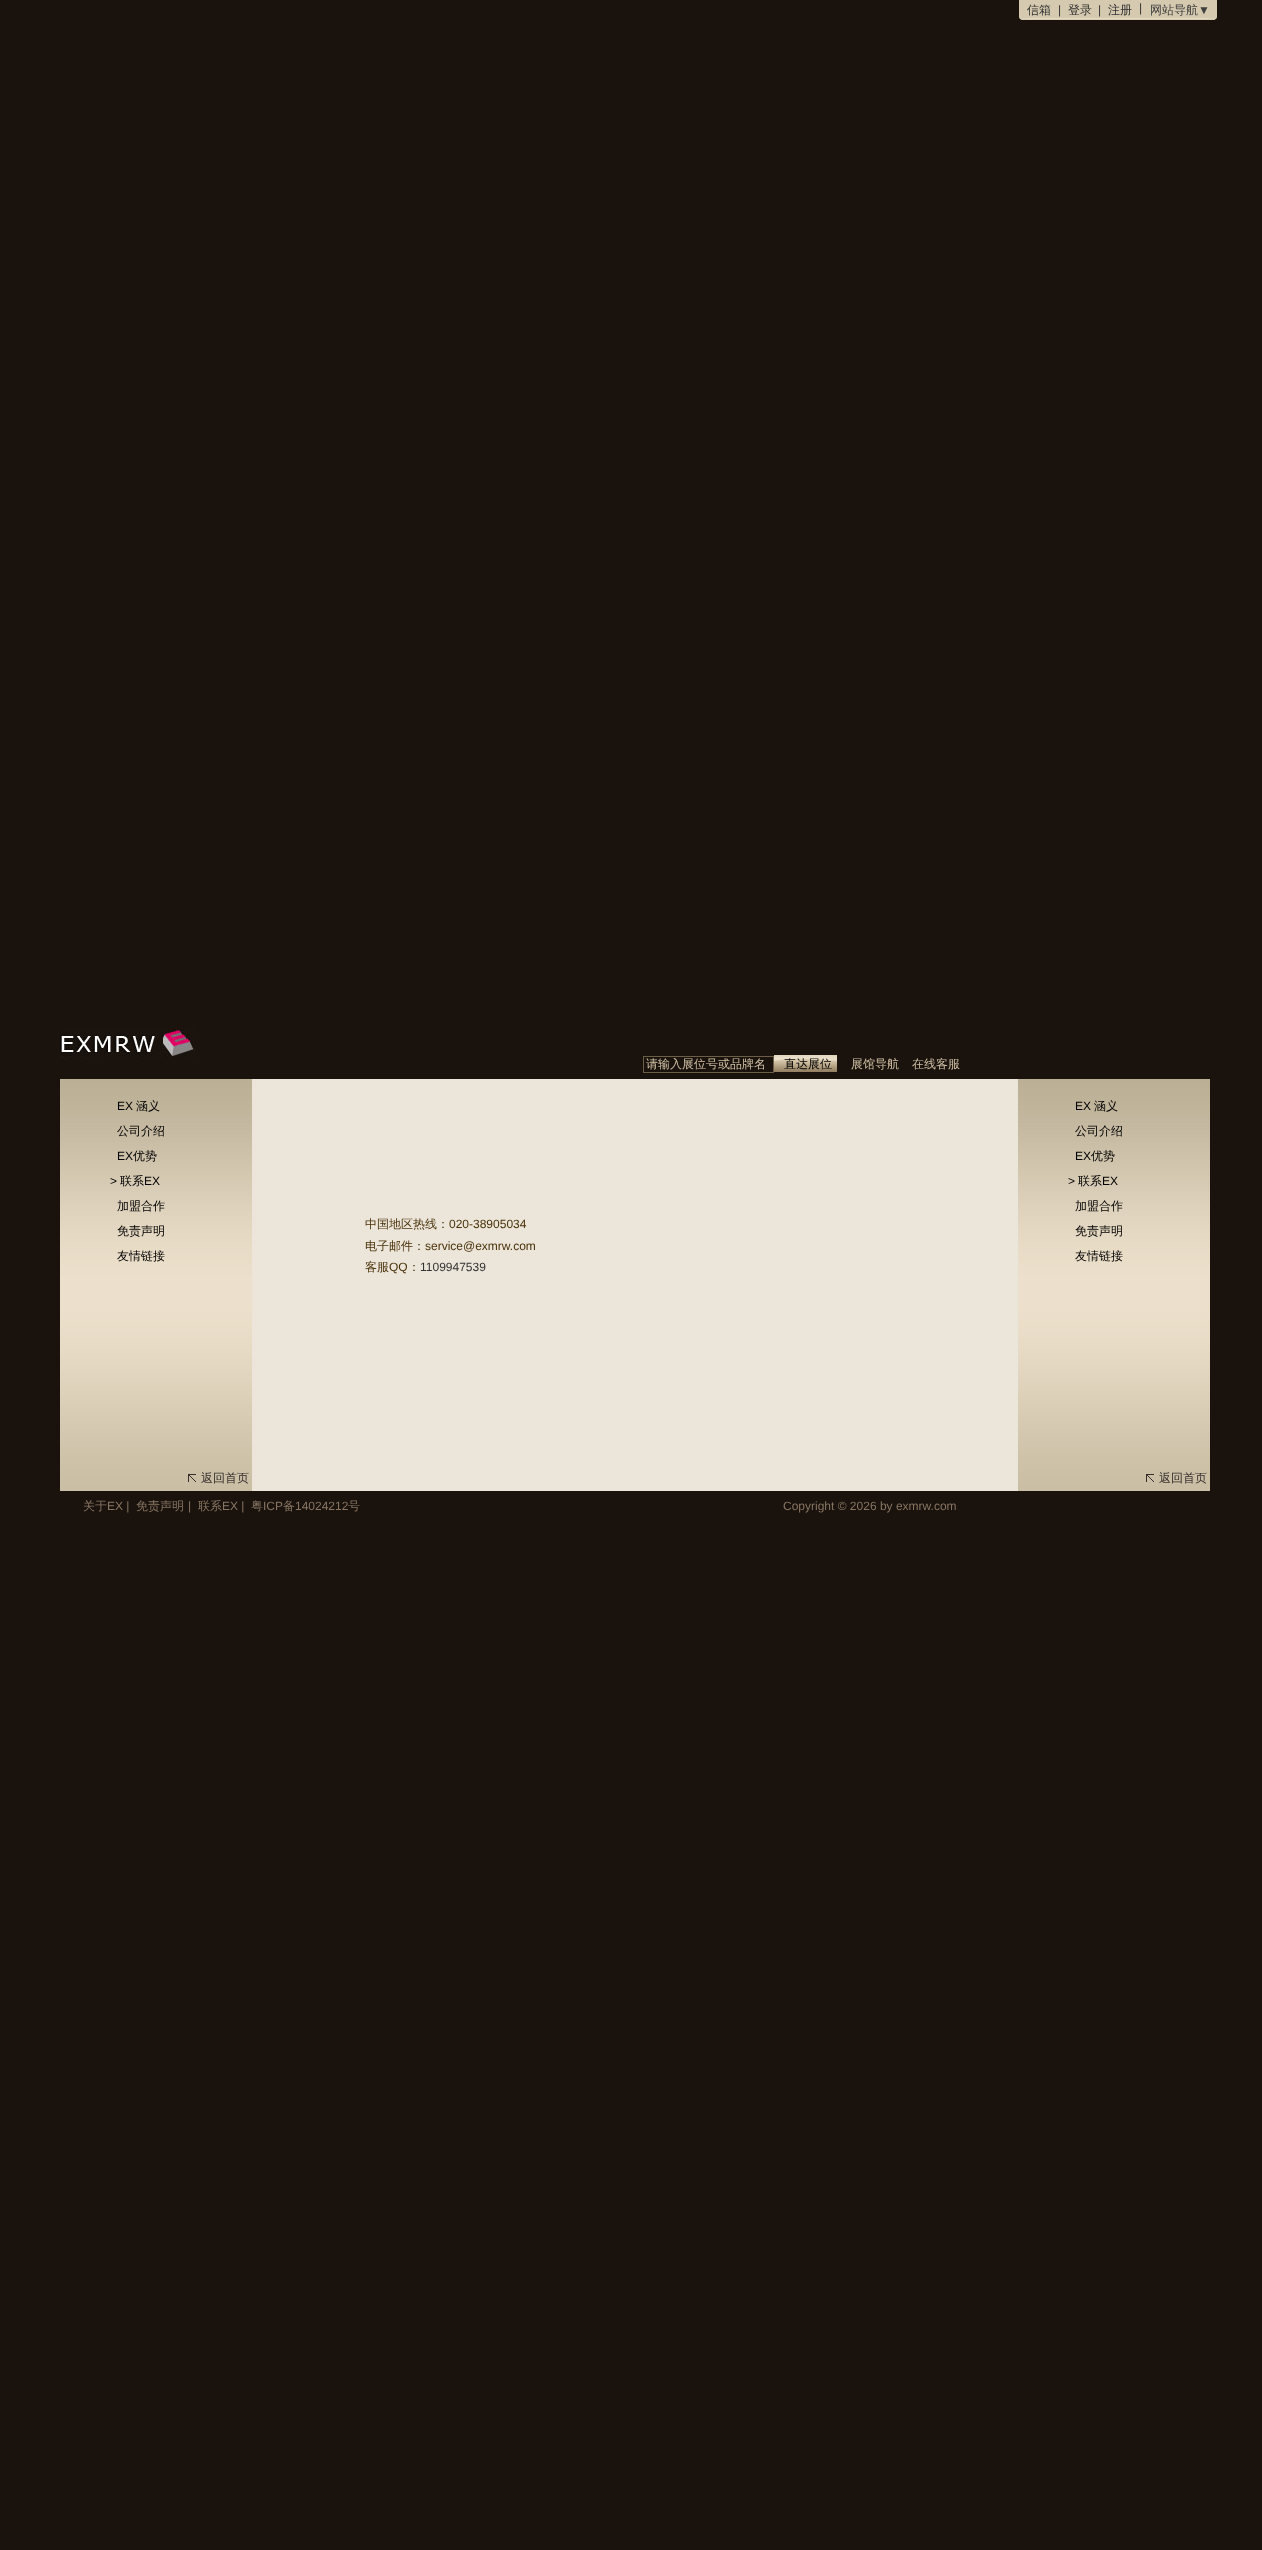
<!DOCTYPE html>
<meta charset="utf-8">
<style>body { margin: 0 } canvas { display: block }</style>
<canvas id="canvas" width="1262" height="2550"></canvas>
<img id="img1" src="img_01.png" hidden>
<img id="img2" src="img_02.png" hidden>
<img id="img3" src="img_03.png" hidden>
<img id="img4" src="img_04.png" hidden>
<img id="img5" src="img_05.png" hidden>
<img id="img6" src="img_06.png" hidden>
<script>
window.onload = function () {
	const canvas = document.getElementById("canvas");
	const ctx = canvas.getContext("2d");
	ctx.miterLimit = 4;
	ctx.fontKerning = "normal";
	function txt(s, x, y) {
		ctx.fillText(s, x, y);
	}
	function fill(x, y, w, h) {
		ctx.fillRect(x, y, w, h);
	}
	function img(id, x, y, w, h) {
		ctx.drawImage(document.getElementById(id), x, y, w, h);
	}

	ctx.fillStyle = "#1A130D";
	fill(0, 0, 1262, 2550);
	img("img1", 1019, 0, 113, 20);
	img("img2", 1132, 0, 85, 20);
	img("img3", 60, 1027, 136, 32);
	ctx.strokeStyle = "#6C5D46";
	ctx.strokeRect(643.5, 1056.5, 130, 16);
	img("img4", 774, 1055, 63, 17);
	img("img5", 60, 1079, 192, 412);
	img("img6", 188, 1474, 8, 8);
	ctx.fillStyle = "#ECE5DA";
	fill(252, 1079, 766, 412);
	img("img5", 1018, 1079, 192, 412);
	img("img6", 1146, 1474, 8, 8);
	ctx.font = "500 12px WenQuanYi Zen Hei";
	ctx.fillStyle = "#333333";
	txt("信箱", 1027, 14);
	ctx.font = "12px Liberation Sans";
	txt("|", 1058, 14);
	ctx.font = "500 12px WenQuanYi Zen Hei";
	txt("登录", 1068, 14);
	ctx.font = "12px Liberation Sans";
	txt("|", 1098, 14);
	ctx.font = "500 12px WenQuanYi Zen Hei";
	txt("注册", 1108, 14);
	ctx.font = "12px Liberation Sans";
	txt("|", 1139, 12);
	ctx.font = "500 12px WenQuanYi Zen Hei";
	ctx.fillStyle = "#404040";
	txt("网站导航", 1150, 14);
	ctx.font = "12px Liberation Sans";
	txt("▼", 1198, 14);
	ctx.font = "500 12px WenQuanYi Zen Hei";
	ctx.fillStyle = "#D1C0A5";
	txt("请输入展位号或品牌名", 646, 1068);
	ctx.fillStyle = "#000000";
	txt("直达展位", 784, 1068);
	ctx.fillStyle = "#D1C0A5";
	txt("展馆导航", 851, 1068);
	txt("在线客服", 912, 1068);
	ctx.font = "12px Liberation Sans";
	ctx.fillStyle = "#000000";
	txt("EX", 117, 1110);
	ctx.font = "500 12px WenQuanYi Zen Hei";
	txt("涵义", 136, 1110);
	txt("公司介绍", 117, 1135);
	ctx.font = "12px Liberation Sans";
	txt("EX", 117, 1160);
	ctx.font = "500 12px WenQuanYi Zen Hei";
	txt("优势", 133, 1160);
	ctx.font = "12px Liberation Sans";
	txt(">", 110, 1185);
	ctx.font = "500 12px WenQuanYi Zen Hei";
	txt("联系", 120, 1185);
	ctx.font = "12px Liberation Sans";
	txt("EX", 144, 1185);
	ctx.font = "500 12px WenQuanYi Zen Hei";
	txt("加盟合作", 117, 1210);
	txt("免责声明", 117, 1235);
	txt("友情链接", 117, 1260);
	ctx.fillStyle = "#352E2C";
	txt("返回首页", 201, 1482);
	ctx.fillStyle = "#493209";
	txt("中国地区热线：", 365, 1228);
	ctx.font = "12px Liberation Sans";
	txt("020-38905034", 449, 1228);
	ctx.font = "500 12px WenQuanYi Zen Hei";
	txt("电子邮件：", 365, 1250);
	ctx.font = "12px Liberation Sans";
	txt("service@exmrw.com", 425, 1250);
	ctx.font = "500 12px WenQuanYi Zen Hei";
	txt("客服", 365, 1271);
	ctx.font = "12px Liberation Sans";
	txt("QQ", 389, 1271);
	ctx.font = "500 12px WenQuanYi Zen Hei";
	txt("：", 408, 1271);
	ctx.font = "12px Liberation Sans";
	ctx.fillStyle = "#333333";
	txt("1109947539", 420, 1271);
	ctx.fillStyle = "#000000";
	txt("EX", 1075, 1110);
	ctx.font = "500 12px WenQuanYi Zen Hei";
	txt("涵义", 1094, 1110);
	txt("公司介绍", 1075, 1135);
	ctx.font = "12px Liberation Sans";
	txt("EX", 1075, 1160);
	ctx.font = "500 12px WenQuanYi Zen Hei";
	txt("优势", 1091, 1160);
	ctx.font = "12px Liberation Sans";
	txt(">", 1068, 1185);
	ctx.font = "500 12px WenQuanYi Zen Hei";
	txt("联系", 1078, 1185);
	ctx.font = "12px Liberation Sans";
	txt("EX", 1102, 1185);
	ctx.font = "500 12px WenQuanYi Zen Hei";
	txt("加盟合作", 1075, 1210);
	txt("免责声明", 1075, 1235);
	txt("友情链接", 1075, 1260);
	ctx.fillStyle = "#352E2C";
	txt("返回首页", 1159, 1482);
	ctx.fillStyle = "#887562";
	txt("关于", 83, 1510);
	ctx.font = "12px Liberation Sans";
	txt("EX |", 107, 1510);
	ctx.font = "500 12px WenQuanYi Zen Hei";
	txt("免责声明", 136, 1510);
	ctx.font = "12px Liberation Sans";
	txt("|", 188, 1510);
	ctx.font = "500 12px WenQuanYi Zen Hei";
	txt("联系", 198, 1510);
	ctx.font = "12px Liberation Sans";
	txt("EX |", 222, 1510);
	ctx.font = "500 12px WenQuanYi Zen Hei";
	txt("粤", 251, 1510);
	ctx.font = "12px Liberation Sans";
	txt("ICP", 263, 1510);
	ctx.font = "500 12px WenQuanYi Zen Hei";
	txt("备", 283, 1510);
	ctx.font = "12px Liberation Sans";
	txt("14024212", 295, 1510);
	ctx.font = "500 12px WenQuanYi Zen Hei";
	txt("号", 348, 1510);
	ctx.font = "12px Liberation Sans";
	txt("Copyright © 2026 by exmrw.com", 783, 1510);
};
</script>
